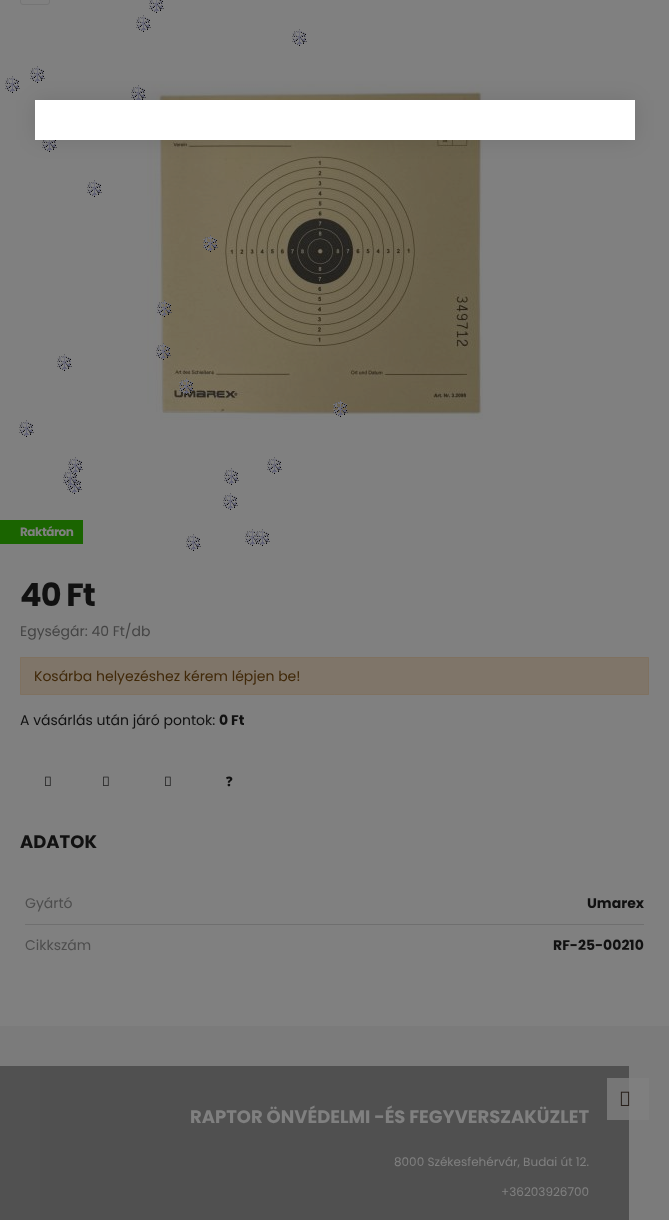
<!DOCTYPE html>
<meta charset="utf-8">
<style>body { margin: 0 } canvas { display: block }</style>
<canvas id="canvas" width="669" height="1220"></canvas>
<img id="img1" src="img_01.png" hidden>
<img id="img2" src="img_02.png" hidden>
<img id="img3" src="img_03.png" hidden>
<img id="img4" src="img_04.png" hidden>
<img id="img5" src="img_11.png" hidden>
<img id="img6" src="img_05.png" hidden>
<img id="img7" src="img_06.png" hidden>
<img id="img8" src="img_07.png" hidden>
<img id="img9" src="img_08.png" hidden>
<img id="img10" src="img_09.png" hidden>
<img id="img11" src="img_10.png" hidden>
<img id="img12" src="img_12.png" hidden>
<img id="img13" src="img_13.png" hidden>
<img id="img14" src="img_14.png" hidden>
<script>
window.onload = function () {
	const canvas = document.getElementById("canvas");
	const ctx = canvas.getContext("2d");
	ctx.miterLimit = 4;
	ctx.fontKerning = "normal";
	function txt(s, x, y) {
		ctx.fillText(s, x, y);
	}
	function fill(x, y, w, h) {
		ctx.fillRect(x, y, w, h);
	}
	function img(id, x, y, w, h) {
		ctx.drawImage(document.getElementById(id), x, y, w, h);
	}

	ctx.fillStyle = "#808080";
	fill(0, 0, 669, 1220);
	img("img1", 149, 0, 15, 13);
	img("img2", 136, 15, 15, 17);
	img("img2", 292, 29, 15, 17);
	img("img2", 30, 66, 15, 17);
	img("img2", 5, 76, 15, 17);
	img("img3", 131, 85, 15, 15);
	img("img4", 42, 140, 15, 12);
	img("img5", 147, 84, 336, 336);
	ctx.fillStyle = "rgba(0, 0, 0, 0.1)";
	ctx.filter = "blur(10px)";
	ctx.beginPath();
	ctx.rect(35, 100, 600, 40);
	ctx.fill();
	ctx.filter = "none";
	ctx.fillStyle = "#FFFFFF";
	fill(35, 100, 600, 40);
	img("img2", 87, 180, 15, 17);
	img("img6", 203, 235, 15, 17);
	img("img7", 157, 300, 15, 17);
	img("img8", 156, 343, 15, 17);
	img("img2", 57, 354, 15, 17);
	img("img9", 179, 378, 15, 17);
	img("img10", 333, 400, 15, 17);
	img("img2", 19, 420, 15, 17);
	img("img2", 68, 457, 15, 17);
	img("img2", 267, 457, 15, 17);
	img("img2", 67, 477, 15, 17);
	img("img11", 63, 470, 15, 17);
	img("img2", 224, 468, 15, 17);
	img("img2", 223, 493, 15, 17);
	ctx.beginPath();
	ctx.roundRect(20.5, -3.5, 29, 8, 2.5);
	ctx.strokeStyle = "#757575";
	ctx.stroke();
	ctx.fillStyle = "#1A6400";
	fill(0, 520, 83, 24);
	ctx.fillStyle = "#7F7569";
	ctx.beginPath();
	ctx.rect(20.5, 657.5, 628, 37);
	ctx.fill();
	ctx.strokeStyle = "#7F7160";
	ctx.stroke();
	img("img12", 45, 776, 6, 10);
	img("img12", 103, 776, 6, 10);
	img("img12", 165, 776, 6, 10);
	ctx.fillStyle = "#6F6F6F";
	fill(25, 924, 619, 1);
	ctx.fillStyle = "#7B7B7B";
	fill(0, 1026, 669, 194);
	ctx.fillStyle = "#7F7F7F";
	fill(629, 1078, 20, 42);
	ctx.fillStyle = "#505050";
	fill(40, 1066, 589, 154);
	ctx.fillStyle = "#767676";
	fill(607, 1078, 22, 42);
	ctx.fillStyle = "#515151";
	fill(0, 1066, 40, 154);
	img("img2", 186, 534, 15, 17);
	img("img2", 245, 529, 15, 17);
	img("img13", 255, 529, 15, 17);
	img("img14", 620, 1091, 10, 15);
	ctx.letterSpacing = "-0.5px";
	ctx.font = "bold 12px Poppins";
	ctx.fillStyle = "#808080";
	txt("Raktáron", 20, 536);
	ctx.letterSpacing = "-1px";
	ctx.font = "bold 32px Poppins";
	ctx.fillStyle = "#111111";
	txt("40 Ft", 20, 606);
	ctx.letterSpacing = "0px";
	ctx.font = "14px Poppins";
	ctx.fillStyle = "#444444";
	txt("Egységár: 40 Ft/db", 20, 636);
	ctx.fillStyle = "#402808";
	txt("Kosárba helyezéshez kérem lépjen be!", 34, 681);
	ctx.fillStyle = "#111111";
	txt("A vásárlás után járó pontok:", 20, 725);
	ctx.font = "bold 14px Poppins";
	txt("0 Ft", 219, 725);
	ctx.font = "900 13px Noto Sans";
	txt("?", 226, 786);
	ctx.font = "bold 18px Poppins";
	txt("ADATOK", 20, 848);
	ctx.font = "14px Poppins";
	ctx.fillStyle = "#4D4D4D";
	txt("Gyártó", 25, 908);
	ctx.font = "bold 14px Poppins";
	ctx.fillStyle = "#111111";
	txt("Umarex", 587, 908);
	ctx.font = "14px Poppins";
	ctx.fillStyle = "#4D4D4D";
	txt("Cikkszám", 25, 950);
	ctx.font = "bold 14px Poppins";
	ctx.fillStyle = "#111111";
	txt("RF-25-00210", 553, 950);
	ctx.font = "bold 18px Poppins";
	ctx.fillStyle = "#808080";
	txt("RAPTOR ÖNVÉDELMI -ÉS FEGYVERSZAKÜZLET", 190, 1123);
	ctx.font = "12px Poppins";
	txt("8000 Székesfehérvár, Budai út 12.", 394, 1166);
	txt("+36203926700", 501, 1196);
};
</script>
